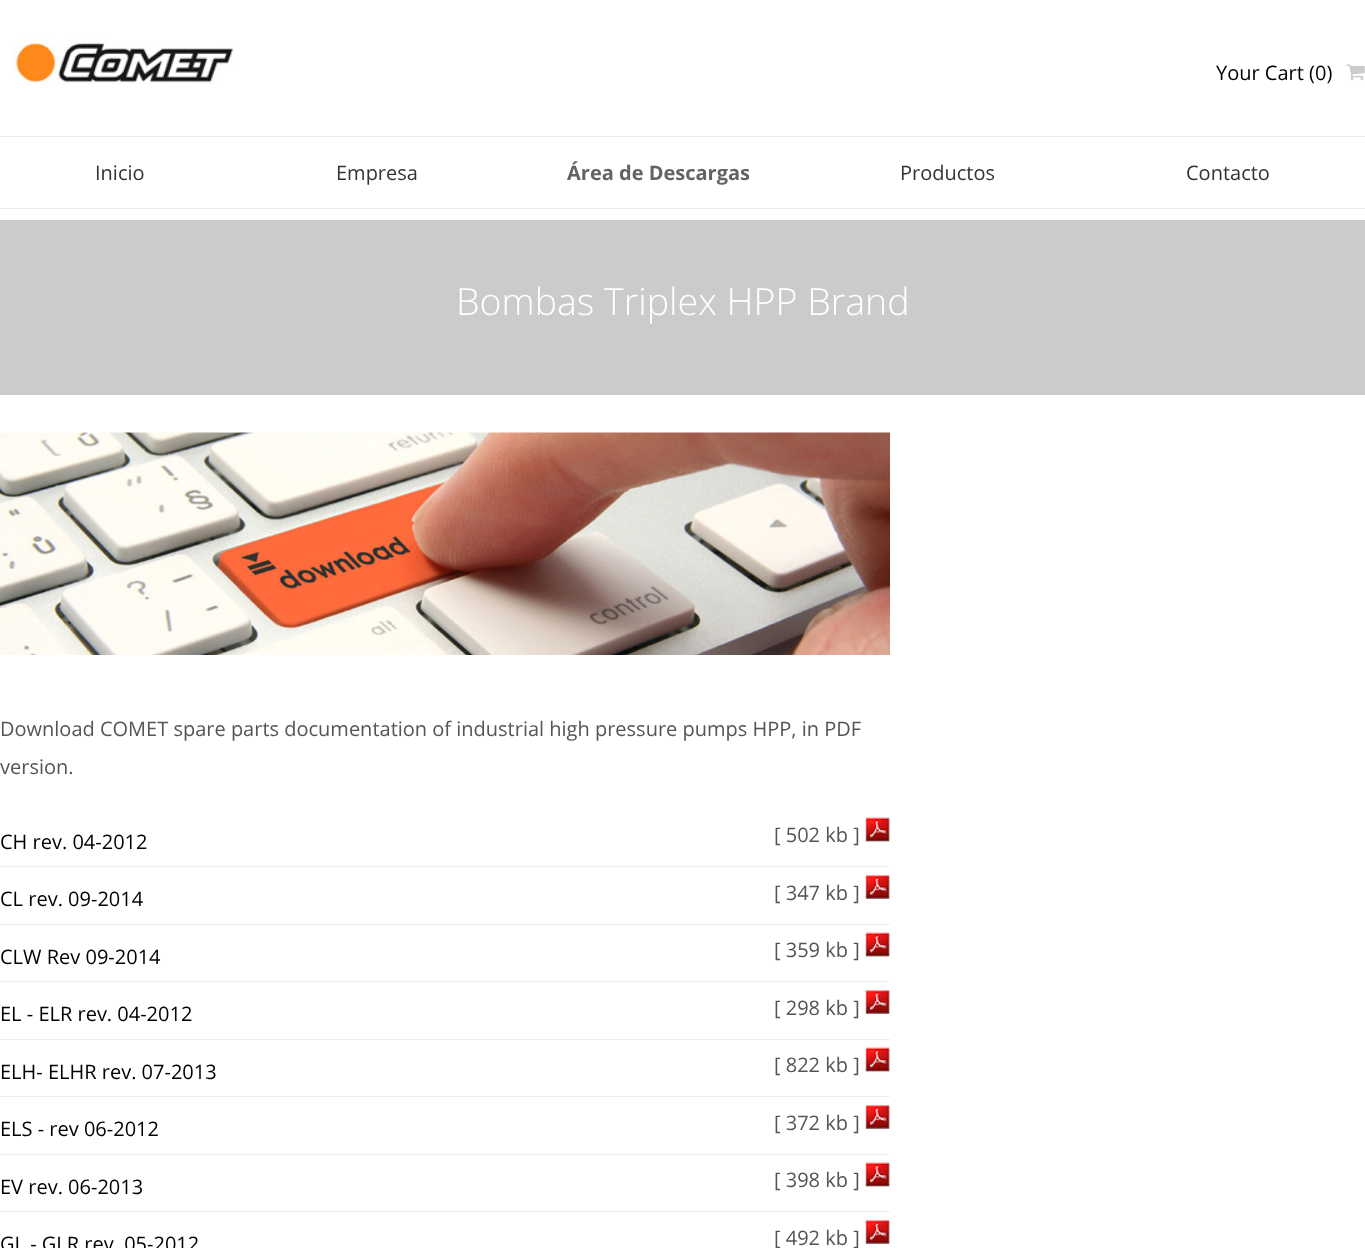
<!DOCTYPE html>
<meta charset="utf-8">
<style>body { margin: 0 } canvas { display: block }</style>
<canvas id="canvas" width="1365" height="1248"></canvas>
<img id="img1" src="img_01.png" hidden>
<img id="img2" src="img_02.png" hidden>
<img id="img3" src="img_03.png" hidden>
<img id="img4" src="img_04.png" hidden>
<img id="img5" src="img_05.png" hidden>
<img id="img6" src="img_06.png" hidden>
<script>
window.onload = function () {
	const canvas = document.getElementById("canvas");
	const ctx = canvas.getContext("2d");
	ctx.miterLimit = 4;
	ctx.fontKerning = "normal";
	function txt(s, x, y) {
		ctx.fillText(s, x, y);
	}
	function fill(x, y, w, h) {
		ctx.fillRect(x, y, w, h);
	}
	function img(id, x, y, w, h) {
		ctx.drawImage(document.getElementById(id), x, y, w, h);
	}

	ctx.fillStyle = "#FFFFFF";
	fill(0, 0, 1365, 1248);
	img("img1", 11, 35, 223, 50);
	img("img2", 1346, 64, 19, 17);
	ctx.fillStyle = "#EDEDED";
	fill(0, 136, 1365, 1);
	fill(0, 208, 1365, 1);
	ctx.fillStyle = "#CBCBCB";
	fill(0, 220, 1365, 175);
	img("img3", 0, 432, 890, 223);
	ctx.fillStyle = "#EEEEEE";
	fill(0, 866, 890, 1);
	img("img4", 865, 817, 25, 26);
	fill(0, 924, 890, 1);
	img("img5", 865, 875, 25, 25);
	fill(0, 981, 890, 1);
	img("img4", 865, 932, 25, 26);
	fill(0, 1039, 890, 1);
	img("img5", 865, 990, 25, 25);
	fill(0, 1096, 890, 1);
	img("img4", 865, 1047, 25, 26);
	fill(0, 1154, 890, 1);
	img("img5", 865, 1105, 25, 25);
	fill(0, 1211, 890, 1);
	img("img6", 865, 1162, 25, 26);
	img("img5", 865, 1220, 25, 25);
	ctx.font = "20px Open Sans";
	ctx.fillStyle = "#000000";
	txt("Your Cart (0)", 1216, 80);
	ctx.fillStyle = "#333333";
	txt("Inicio", 95, 180);
	txt("Empresa", 336, 180);
	ctx.font = "bold 20px Open Sans";
	ctx.fillStyle = "#636363";
	txt("Área de Descargas", 567, 180);
	ctx.font = "20px Open Sans";
	ctx.fillStyle = "#333333";
	txt("Productos", 900, 180);
	txt("Contacto", 1186, 180);
	ctx.font = "300 37.5px Open Sans";
	ctx.fillStyle = "#FFFFFF";
	txt("Bombas Triplex HPP Brand", 456, 315);
	ctx.font = "20px Open Sans";
	ctx.fillStyle = "#555555";
	txt("Download COMET spare parts documentation of industrial high pressure pumps HPP, in PDF", 0, 736);
	txt("version.", 0, 774);
	ctx.fillStyle = "#000000";
	txt("CH rev. 04-2012", 0, 849);
	ctx.fillStyle = "#555555";
	txt("[ 502 kb ]", 774, 842);
	ctx.fillStyle = "#000000";
	txt("CL rev. 09-2014", 0, 906);
	ctx.fillStyle = "#555555";
	txt("[ 347 kb ]", 774, 900);
	ctx.fillStyle = "#000000";
	txt("CLW Rev 09-2014", 0, 964);
	ctx.fillStyle = "#555555";
	txt("[ 359 kb ]", 774, 957);
	ctx.fillStyle = "#000000";
	txt("EL - ELR rev. 04-2012", 0, 1021);
	ctx.fillStyle = "#555555";
	txt("[ 298 kb ]", 774, 1015);
	ctx.fillStyle = "#000000";
	txt("ELH- ELHR rev. 07-2013", 0, 1079);
	ctx.fillStyle = "#555555";
	txt("[ 822 kb ]", 774, 1072);
	ctx.fillStyle = "#000000";
	txt("ELS - rev 06-2012", 0, 1136);
	ctx.fillStyle = "#555555";
	txt("[ 372 kb ]", 774, 1130);
	ctx.fillStyle = "#000000";
	txt("EV rev. 06-2013", 0, 1194);
	ctx.fillStyle = "#555555";
	txt("[ 398 kb ]", 774, 1187);
	ctx.fillStyle = "#000000";
	txt("GL - GLR rev. 05-2012", 0, 1251);
	ctx.fillStyle = "#555555";
	txt("[ 492 kb ]", 774, 1245);
};
</script>
